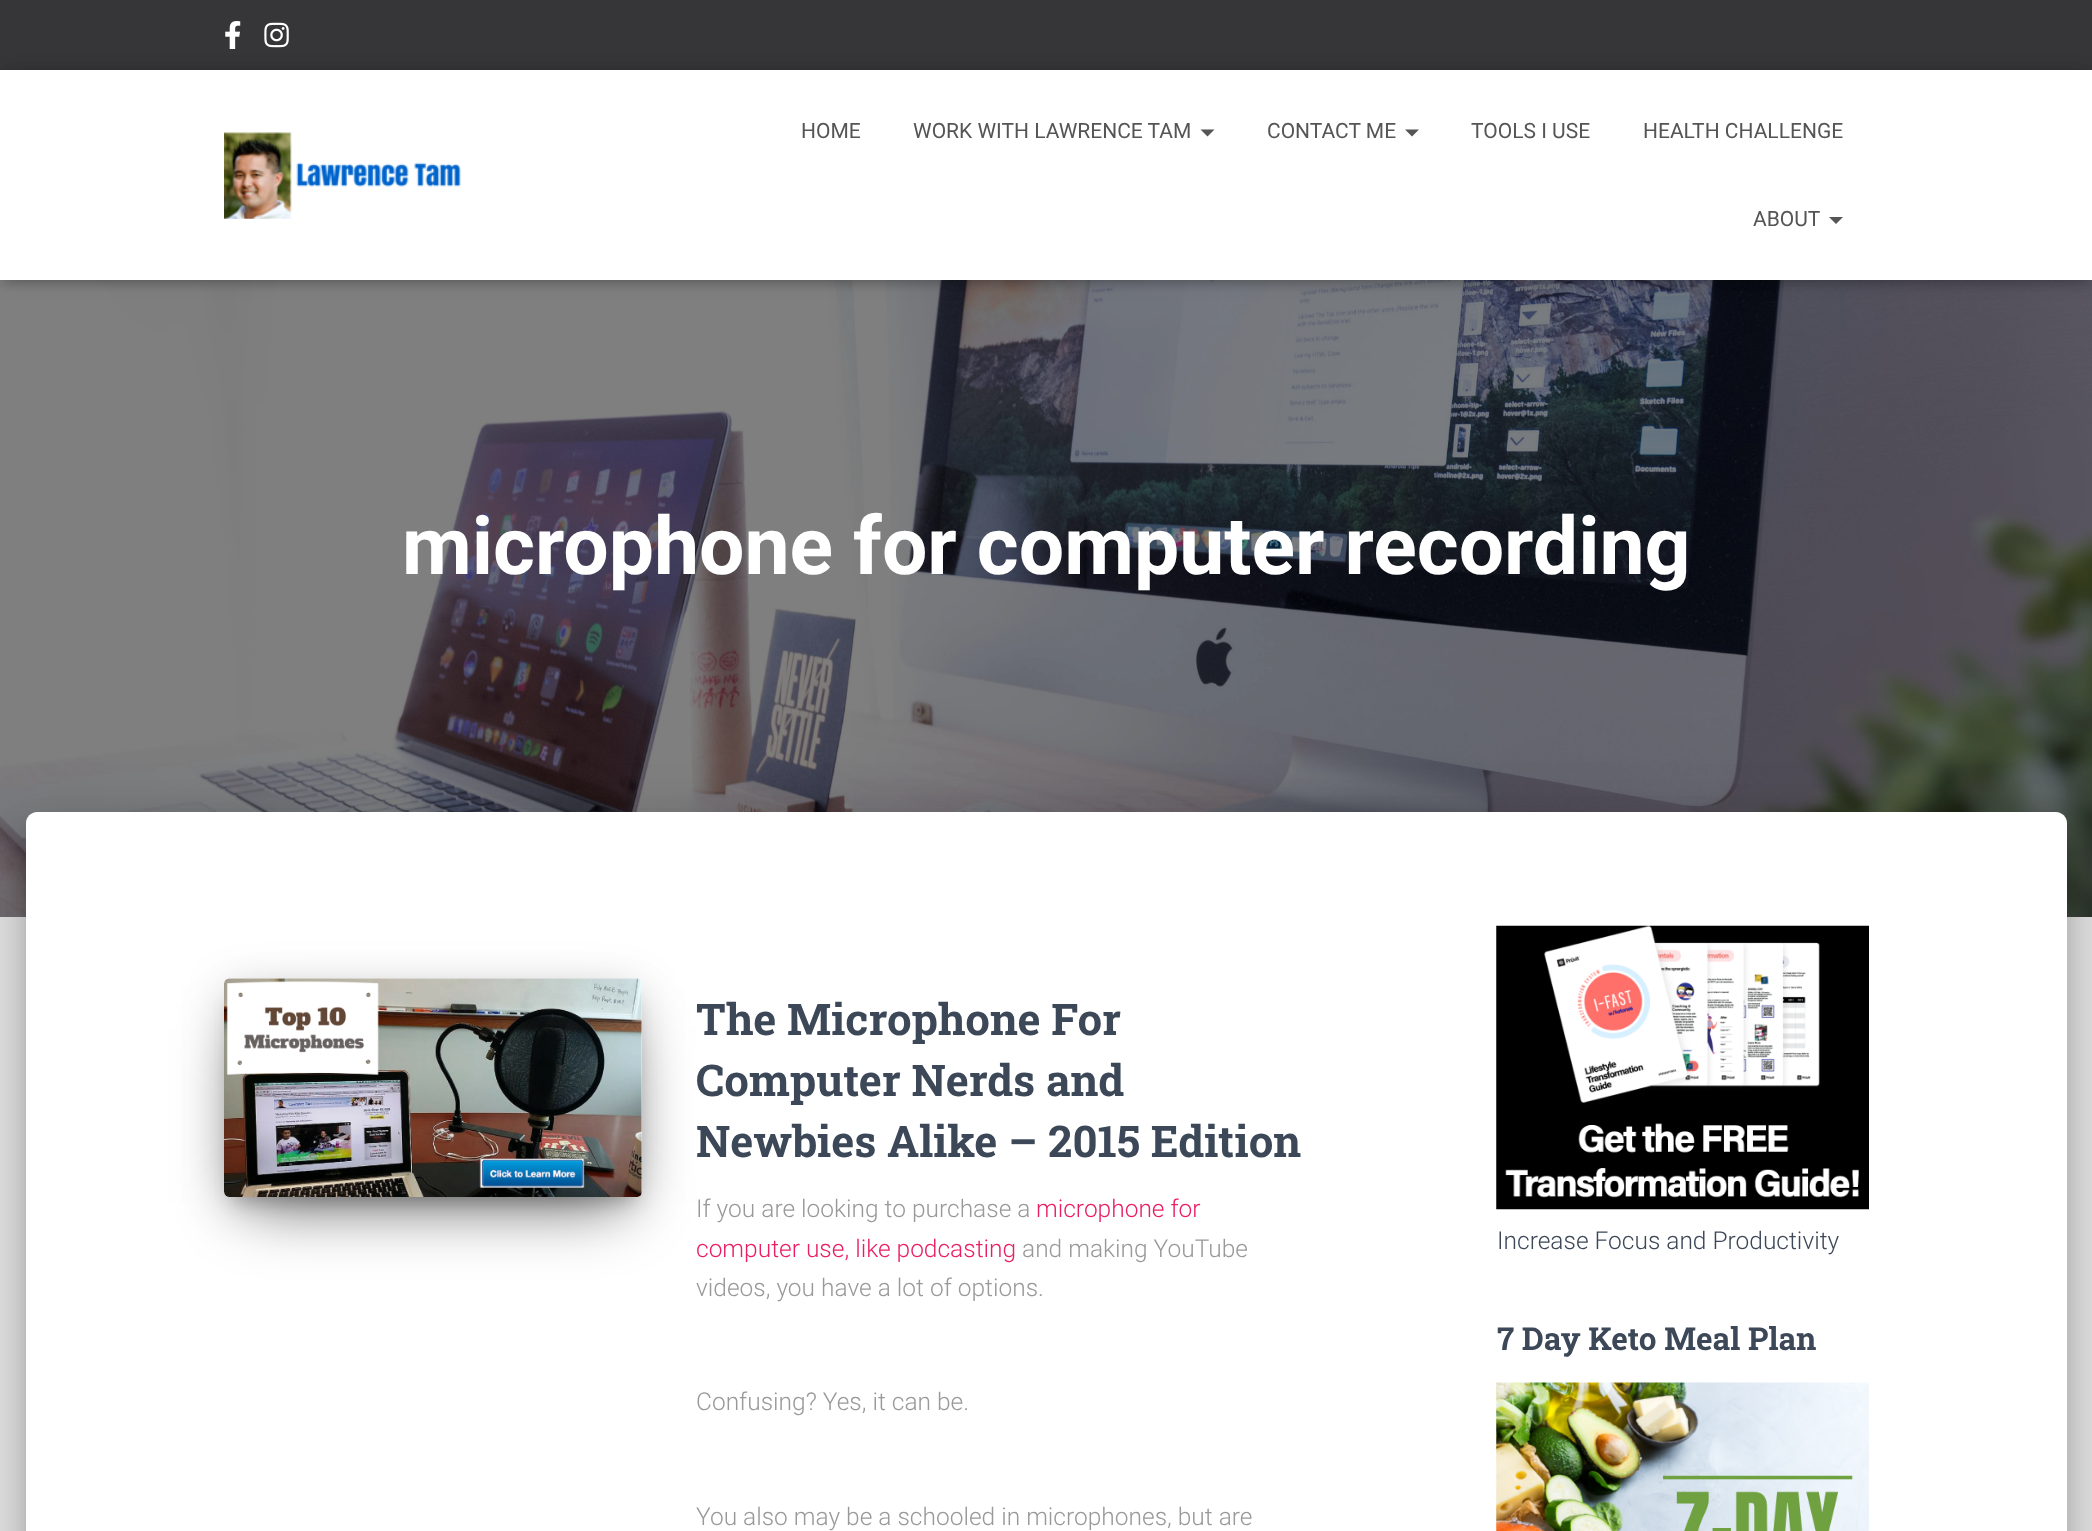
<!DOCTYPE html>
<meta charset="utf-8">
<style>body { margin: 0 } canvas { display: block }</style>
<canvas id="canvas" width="2092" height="1531"></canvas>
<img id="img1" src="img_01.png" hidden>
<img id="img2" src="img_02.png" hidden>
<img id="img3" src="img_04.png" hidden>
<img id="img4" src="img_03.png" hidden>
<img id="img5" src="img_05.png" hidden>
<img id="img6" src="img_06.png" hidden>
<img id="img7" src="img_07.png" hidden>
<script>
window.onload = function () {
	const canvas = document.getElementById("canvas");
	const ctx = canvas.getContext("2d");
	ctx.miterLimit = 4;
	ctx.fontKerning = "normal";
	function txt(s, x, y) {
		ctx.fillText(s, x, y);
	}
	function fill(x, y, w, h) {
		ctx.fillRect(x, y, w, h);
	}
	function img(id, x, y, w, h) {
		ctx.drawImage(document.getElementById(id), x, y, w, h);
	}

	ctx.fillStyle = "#E5E5E5";
	fill(0, 0, 2092, 1531);
	ctx.fillStyle = "#363537";
	fill(0, 0, 2092, 70);
	img("img1", 225, 21, 16, 28);
	img("img2", 264, 22, 25, 26);
	img("img3", 0, 280, 2092, 637);
	ctx.fillStyle = "rgba(0, 0, 0, 0.1)";
	ctx.filter = "blur(4.5px)";
	ctx.beginPath();
	ctx.rect(4, 81, 2086, 203);
	ctx.fill();
	ctx.filter = "none";
	ctx.fillStyle = "rgba(0, 0, 0, 0.12)";
	ctx.filter = "blur(9px)";
	ctx.beginPath();
	ctx.rect(0, 72, 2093, 210);
	ctx.fill();
	ctx.filter = "none";
	ctx.fillStyle = "rgba(0, 0, 0, 0.42)";
	ctx.filter = "blur(9px)";
	ctx.beginPath();
	ctx.rect(11, 82, 2072, 189);
	ctx.fill();
	ctx.filter = "none";
	ctx.fillStyle = "#FFFFFF";
	fill(0, 70, 2092, 210);
	img("img4", 224, 132, 237, 87);
	ctx.fillStyle = "#555555";
	ctx.beginPath();
	ctx.moveTo(1200.5, 129.5);
	ctx.lineTo(1214.5, 129.5);
	ctx.lineTo(1207.5, 136.5);
	ctx.closePath();
	ctx.fill();
	ctx.beginPath();
	ctx.moveTo(1405, 129.5);
	ctx.lineTo(1419, 129.5);
	ctx.lineTo(1412, 136.5);
	ctx.closePath();
	ctx.fill();
	ctx.beginPath();
	ctx.moveTo(1829, 217);
	ctx.lineTo(1843, 217);
	ctx.lineTo(1836, 224);
	ctx.closePath();
	ctx.fill();
	ctx.fillStyle = "rgba(0, 0, 0, 0.2)";
	ctx.filter = "blur(9px)";
	ctx.beginPath();
	ctx.roundRect(35, 835, 2023, 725, 2);
	ctx.fill();
	ctx.filter = "none";
	ctx.fillStyle = "rgba(0, 0, 0, 0.12)";
	ctx.filter = "blur(26px)";
	ctx.beginPath();
	ctx.roundRect(18, 814, 2058, 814, 19);
	ctx.fill();
	ctx.filter = "none";
	ctx.fillStyle = "rgba(0, 0, 0, 0.14)";
	ctx.filter = "blur(21px)";
	ctx.beginPath();
	ctx.roundRect(23, 837, 2047, 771, 14);
	ctx.fill();
	ctx.filter = "none";
	ctx.fillStyle = "#FFFFFF";
	ctx.beginPath();
	ctx.moveTo(37, 812);
	ctx.lineTo(2056, 812);
	ctx.bezierCurveTo(2062, 812, 2067, 817, 2067, 823);
	ctx.lineTo(2067, 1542);
	ctx.lineTo(26, 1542);
	ctx.lineTo(26, 823);
	ctx.bezierCurveTo(26, 817, 31, 812, 37, 812);
	ctx.closePath();
	ctx.fill();
	ctx.fillStyle = "rgba(0, 0, 0, 0.2)";
	ctx.filter = "blur(9px)";
	ctx.beginPath();
	ctx.rect(233, 1001, 401, 201);
	ctx.fill();
	ctx.filter = "none";
	ctx.fillStyle = "rgba(0, 0, 0, 0.12)";
	ctx.filter = "blur(22px)";
	ctx.beginPath();
	ctx.roundRect(224, 985, 418, 219, 5);
	ctx.fill();
	ctx.filter = "none";
	ctx.fillStyle = "rgba(0, 0, 0, 0.56)";
	ctx.filter = "blur(33px)";
	ctx.beginPath();
	ctx.rect(245, 1027, 376, 177);
	ctx.fill();
	ctx.filter = "none";
	img("img5", 224, 978, 418, 219);
	img("img6", 1496, 925, 373, 285);
	img("img7", 1496, 1382, 373, 149);
	ctx.font = "21px Roboto";
	ctx.fillStyle = "#555555";
	txt("HOME", 801, 138);
	txt("WORK WITH LAWRENCE TAM", 913, 138);
	txt("CONTACT ME", 1267, 138);
	txt("TOOLS I USE", 1471, 138);
	txt("HEALTH CHALLENGE", 1643, 138);
	txt("ABOUT", 1753, 226);
	ctx.font = "bold 80.5px Roboto";
	ctx.fillStyle = "#FFFFFF";
	txt("microphone for computer recording", 402, 574);
	ctx.font = "bold 43.75px Roboto Slab";
	ctx.fillStyle = "#3C4858";
	txt("The Microphone For", 696, 1035);
	txt("Computer Nerds and", 696, 1096);
	txt("Newbies Alike – 2015 Edition", 696, 1157);
	ctx.font = "300 24.5px Roboto";
	ctx.fillStyle = "#999999";
	txt("If you are looking to purchase a", 696, 1217);
	ctx.fillStyle = "#E91E63";
	txt("microphone for", 1036, 1217);
	txt("computer use, like podcasting", 696, 1257);
	ctx.fillStyle = "#999999";
	txt("and making YouTube", 1022, 1257);
	txt("videos, you have a lot of options.", 696, 1296);
	txt("Confusing? Yes, it can be.", 696, 1410);
	txt("You also may be a schooled in microphones, but are", 696, 1525);
	ctx.fillStyle = "#3C4858";
	txt("Increase Focus and Productivity", 1497, 1249);
	ctx.font = "bold 31.5px Roboto Slab";
	txt("7 Day Keto Meal Plan", 1497, 1350);
};
</script>
